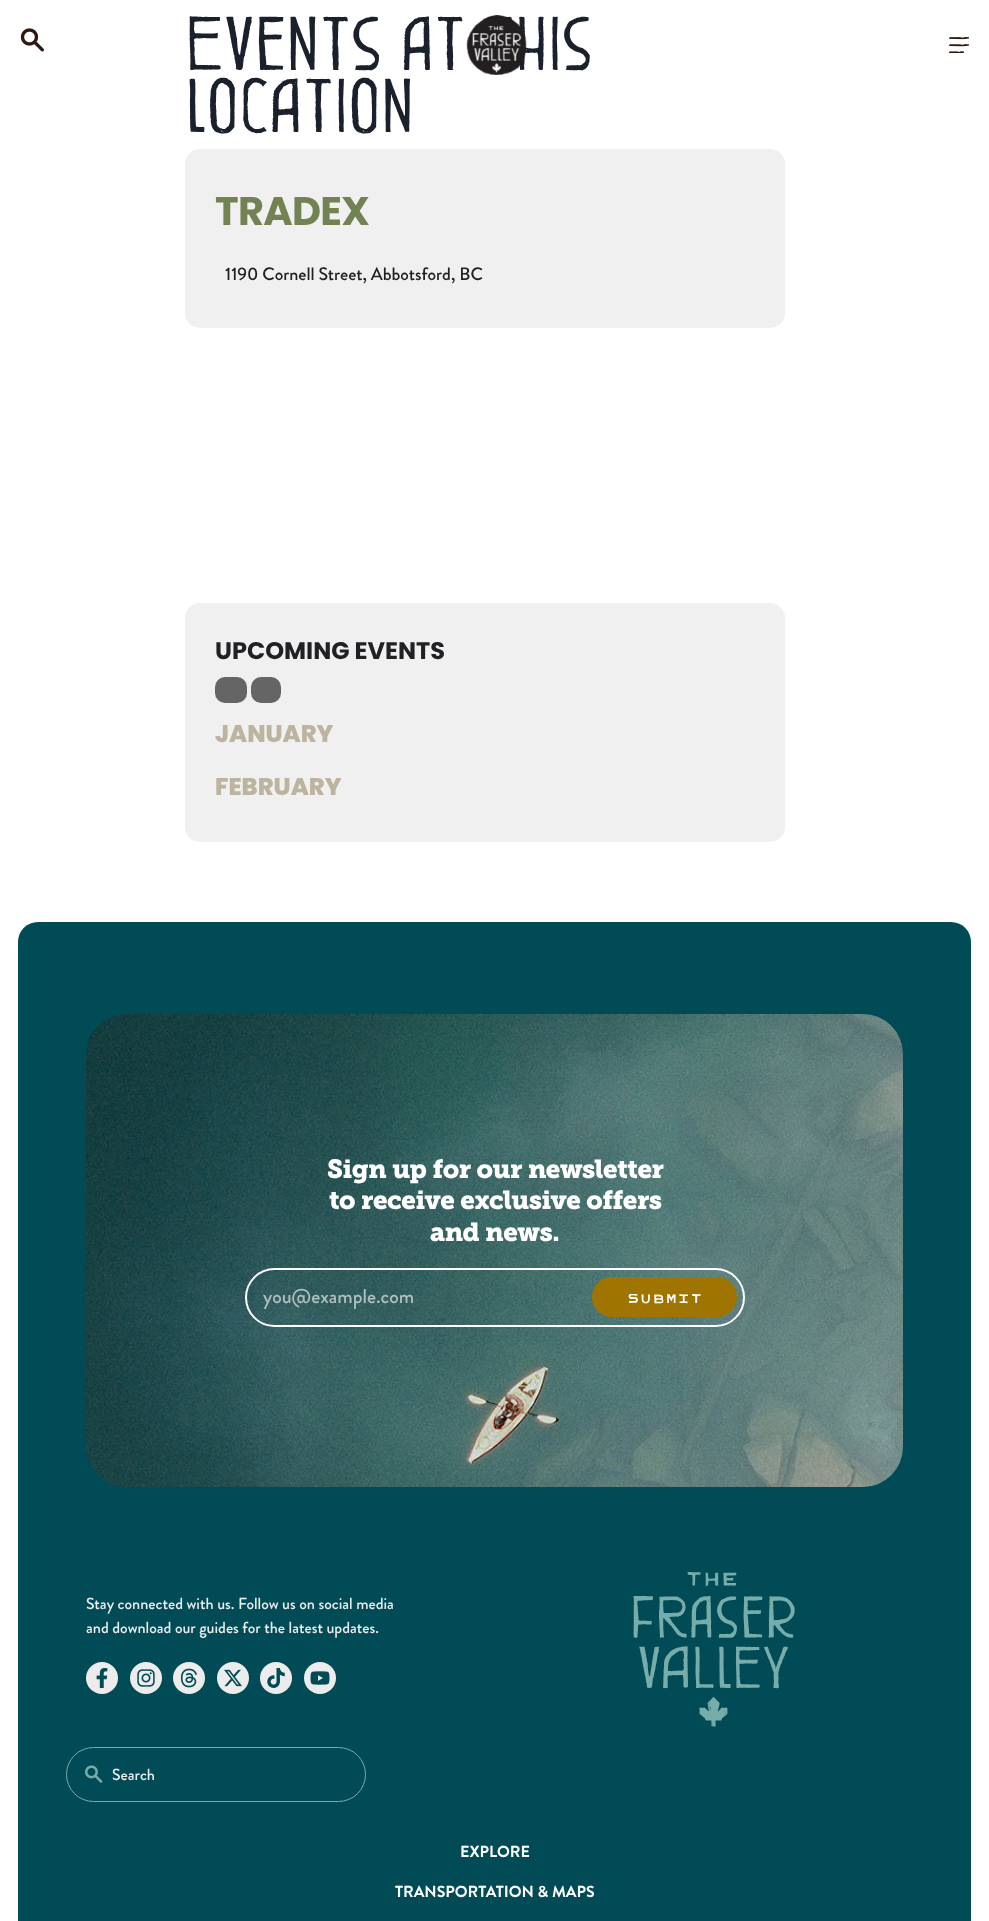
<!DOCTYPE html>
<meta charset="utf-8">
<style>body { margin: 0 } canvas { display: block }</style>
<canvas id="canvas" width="989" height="1921"></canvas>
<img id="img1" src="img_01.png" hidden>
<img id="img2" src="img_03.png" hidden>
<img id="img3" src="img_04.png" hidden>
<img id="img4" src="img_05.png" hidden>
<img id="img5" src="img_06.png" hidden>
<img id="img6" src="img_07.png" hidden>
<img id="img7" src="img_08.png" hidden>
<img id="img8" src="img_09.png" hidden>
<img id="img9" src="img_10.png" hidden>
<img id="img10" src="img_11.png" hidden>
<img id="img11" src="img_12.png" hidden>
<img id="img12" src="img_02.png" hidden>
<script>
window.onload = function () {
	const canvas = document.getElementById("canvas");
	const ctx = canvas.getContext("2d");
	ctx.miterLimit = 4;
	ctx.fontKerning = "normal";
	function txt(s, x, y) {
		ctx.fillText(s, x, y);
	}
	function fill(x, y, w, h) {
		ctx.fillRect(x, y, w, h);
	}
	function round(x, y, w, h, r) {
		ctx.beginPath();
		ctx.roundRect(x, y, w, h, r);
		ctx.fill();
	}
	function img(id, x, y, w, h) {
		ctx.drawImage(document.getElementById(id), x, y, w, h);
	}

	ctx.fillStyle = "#FFFFFF";
	fill(0, 0, 989, 1921);
	img("img1", 20, 28, 24, 24);
	img("img2", 949, 37, 20, 16);
	ctx.fillStyle = "#F0F0F0";
	round(185, 149, 600, 179, 15);
	round(185, 603, 600, 239, 15);
	ctx.fillStyle = "#656565";
	round(215, 677, 32, 26, 10);
	round(251, 677, 30, 26, 10);
	ctx.fillStyle = "#004B55";
	round(18, 922, 953, 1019, 20);
	img("img3", 86, 1014, 817, 473);
	ctx.beginPath();
	ctx.roundRect(246, 1269, 498, 57, 28.5);
	ctx.strokeStyle = "#FFFFFF";
	ctx.lineWidth = 2;
	ctx.stroke();
	ctx.fillStyle = "#A07400";
	round(592, 1277, 145, 40, 20);
	ctx.fillStyle = "#ECECEC";
	ctx.beginPath();
	ctx.arc(102, 1678, 16, 0, Math.PI * 2);
	ctx.fill();
	img("img4", 96, 1668, 12, 20);
	ctx.beginPath();
	ctx.arc(146, 1678, 16, 0, Math.PI * 2);
	ctx.fill();
	img("img5", 137, 1669, 18, 18);
	ctx.beginPath();
	ctx.arc(189, 1678, 16, 0, Math.PI * 2);
	ctx.fill();
	img("img6", 180, 1668, 17, 20);
	ctx.beginPath();
	ctx.arc(233, 1678, 16, 0, Math.PI * 2);
	ctx.fill();
	img("img7", 224, 1669, 18, 18);
	ctx.beginPath();
	ctx.arc(276, 1678, 16, 0, Math.PI * 2);
	ctx.fill();
	img("img8", 267, 1668, 18, 20);
	ctx.beginPath();
	ctx.arc(320, 1678, 16, 0, Math.PI * 2);
	ctx.fill();
	img("img9", 310, 1671, 20, 14);
	img("img10", 633, 1572, 162, 155);
	ctx.beginPath();
	ctx.roundRect(66.5, 1747.5, 299, 54, 27);
	ctx.strokeStyle = "#76ACA9";
	ctx.lineWidth = 1;
	ctx.stroke();
	img("img11", 85, 1765, 18, 18);
	ctx.letterSpacing = "-1px";
	ctx.font = "600 52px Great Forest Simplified";
	ctx.fillStyle = "#1A202C";
	txt("Events at this", 185, 70);
	img("img12", 466, 15, 61, 60);
	txt("location", 185, 132);
	ctx.letterSpacing = "-0.75px";
	ctx.font = "bold 40px Poppins";
	ctx.fillStyle = "#728252";
	txt("TRADEX", 215, 225);
	ctx.letterSpacing = "0px";
	ctx.font = "500 18px Brandon Grotesque";
	ctx.fillStyle = "#202124";
	txt("1190 Cornell Street, Abbotsford, BC", 225, 280);
	ctx.font = "bold 24px Poppins";
	txt("UPCOMING EVENTS", 215, 659);
	ctx.font = "800 24px Poppins";
	ctx.fillStyle = "#BCB49E";
	txt("JANUARY", 215, 742);
	txt("FEBRUARY", 215, 795);
	ctx.letterSpacing = "-0.5px";
	ctx.font = "bold 26px 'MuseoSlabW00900'";
	ctx.fillStyle = "#FFFFFF";
	txt("Sign up for our newsletter", 327, 1178);
	txt("to receive exclusive offers", 329, 1209);
	txt("and news.", 430, 1241);
	ctx.letterSpacing = "0px";
	ctx.font = "500 20px Brandon Grotesque";
	ctx.fillStyle = "#ADBEBE";
	txt("you@example.com", 263, 1303);
	ctx.letterSpacing = "0.5px";
	ctx.font = "20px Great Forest";
	ctx.fillStyle = "#FFFFFF";
	txt("SUBMIT", 627, 1309);
	ctx.letterSpacing = "0px";
	ctx.font = "500 16px Brandon Grotesque";
	ctx.fillStyle = "#ECECEC";
	txt("Stay connected with us. Follow us on social media", 86, 1609);
	txt("and download our guides for the latest updates.", 86, 1633);
	txt("Search", 112, 1780);
	ctx.font = "bold 16px Brandon Grotesque";
	ctx.fillStyle = "#FFFFFF";
	txt("EXPLORE", 460, 1857);
	txt("TRANSPORTATION & MAPS", 395, 1897);
};
</script>
